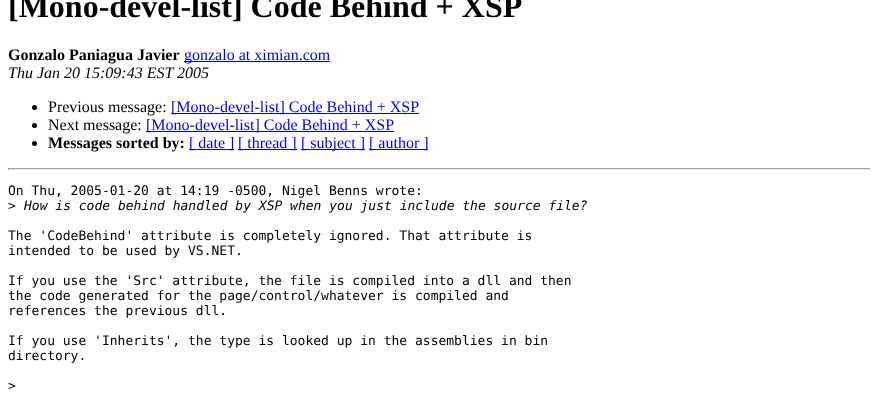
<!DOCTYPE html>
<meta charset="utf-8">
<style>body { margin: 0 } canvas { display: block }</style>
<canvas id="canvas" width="879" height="396"></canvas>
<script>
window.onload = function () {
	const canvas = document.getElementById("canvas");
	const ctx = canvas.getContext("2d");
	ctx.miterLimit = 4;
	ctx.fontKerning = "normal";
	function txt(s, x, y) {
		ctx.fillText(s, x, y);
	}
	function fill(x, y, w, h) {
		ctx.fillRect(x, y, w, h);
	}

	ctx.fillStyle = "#FFFFFF";
	fill(0, 0, 879, 396);
	ctx.fillStyle = "#0000EE";
	fill(184, 61, 146, 1);
	ctx.fillStyle = "#000000";
	ctx.beginPath();
	ctx.arc(34.5, 107.5, 2.5, 0, Math.PI * 2);
	ctx.fill();
	ctx.fillStyle = "#0000EE";
	fill(171, 113, 248, 1);
	ctx.fillStyle = "#000000";
	ctx.beginPath();
	ctx.arc(34.5, 125.5, 2.5, 0, Math.PI * 2);
	ctx.fill();
	ctx.fillStyle = "#0000EE";
	fill(146, 131, 248, 1);
	ctx.fillStyle = "#000000";
	ctx.beginPath();
	ctx.arc(34.5, 143.5, 2.5, 0, Math.PI * 2);
	ctx.fill();
	ctx.fillStyle = "#0000EE";
	fill(189, 149, 45, 1);
	fill(238, 149, 59, 1);
	fill(301, 149, 64, 1);
	fill(369, 149, 59, 1);
	ctx.fillStyle = "#9F9F9F";
	fill(8, 168, 863, 1);
	ctx.fillStyle = "#EEEEEE";
	fill(870, 168, 1, 2);
	fill(8, 169, 863, 1);
	ctx.fillStyle = "#9F9F9F";
	fill(8, 168, 1, 2);
	ctx.font = "bold 32px Liberation Serif";
	ctx.fillStyle = "#000000";
	txt("[Mono-devel-list] Code Behind + XSP", 8, 17);
	ctx.font = "bold 16px Liberation Serif";
	txt("Gonzalo Paniagua Javier", 8, 60);
	ctx.font = "16px Liberation Serif";
	ctx.fillStyle = "#0000EE";
	txt("gonzalo at ximian.com", 184, 60);
	ctx.font = "italic 16px Liberation Serif";
	ctx.fillStyle = "#000000";
	txt("Thu Jan 20 15:09:43 EST 2005", 8, 78);
	ctx.font = "16px Liberation Serif";
	txt("Previous message:", 48, 112);
	ctx.fillStyle = "#0000EE";
	txt("[Mono-devel-list] Code Behind + XSP", 171, 112);
	ctx.fillStyle = "#000000";
	txt("Next message:", 48, 130);
	ctx.fillStyle = "#0000EE";
	txt("[Mono-devel-list] Code Behind + XSP", 146, 130);
	ctx.font = "bold 16px Liberation Serif";
	ctx.fillStyle = "#000000";
	txt("Messages sorted by:", 48, 148);
	ctx.font = "16px Liberation Serif";
	ctx.fillStyle = "#0000EE";
	txt("[ date ]", 189, 148);
	txt("[ thread ]", 238, 148);
	txt("[ subject ]", 301, 148);
	txt("[ author ]", 369, 148);
	ctx.font = "13px DejaVu Sans Mono";
	ctx.fillStyle = "#000000";
	txt("On Thu, 2005-01-20 at 14:19 -0500, Nigel Benns wrote:", 8, 195);
	txt(">", 8, 210);
	ctx.font = "italic 13px DejaVu Sans Mono";
	txt("How is code behind handled by XSP when you just include the source file?", 24, 210);
	ctx.font = "13px DejaVu Sans Mono";
	txt("The 'CodeBehind' attribute is completely ignored. That attribute is", 8, 240);
	txt("intended to be used by VS.NET.", 8, 255);
	txt("If you use the 'Src' attribute, the file is compiled into a dll and then", 8, 285);
	txt("the code generated for the page/control/whatever is compiled and", 8, 300);
	txt("references the previous dll.", 8, 315);
	txt("If you use 'Inherits', the type is looked up in the assemblies in bin", 8, 345);
	txt("directory.", 8, 360);
	txt(">", 8, 390);
};
</script>
